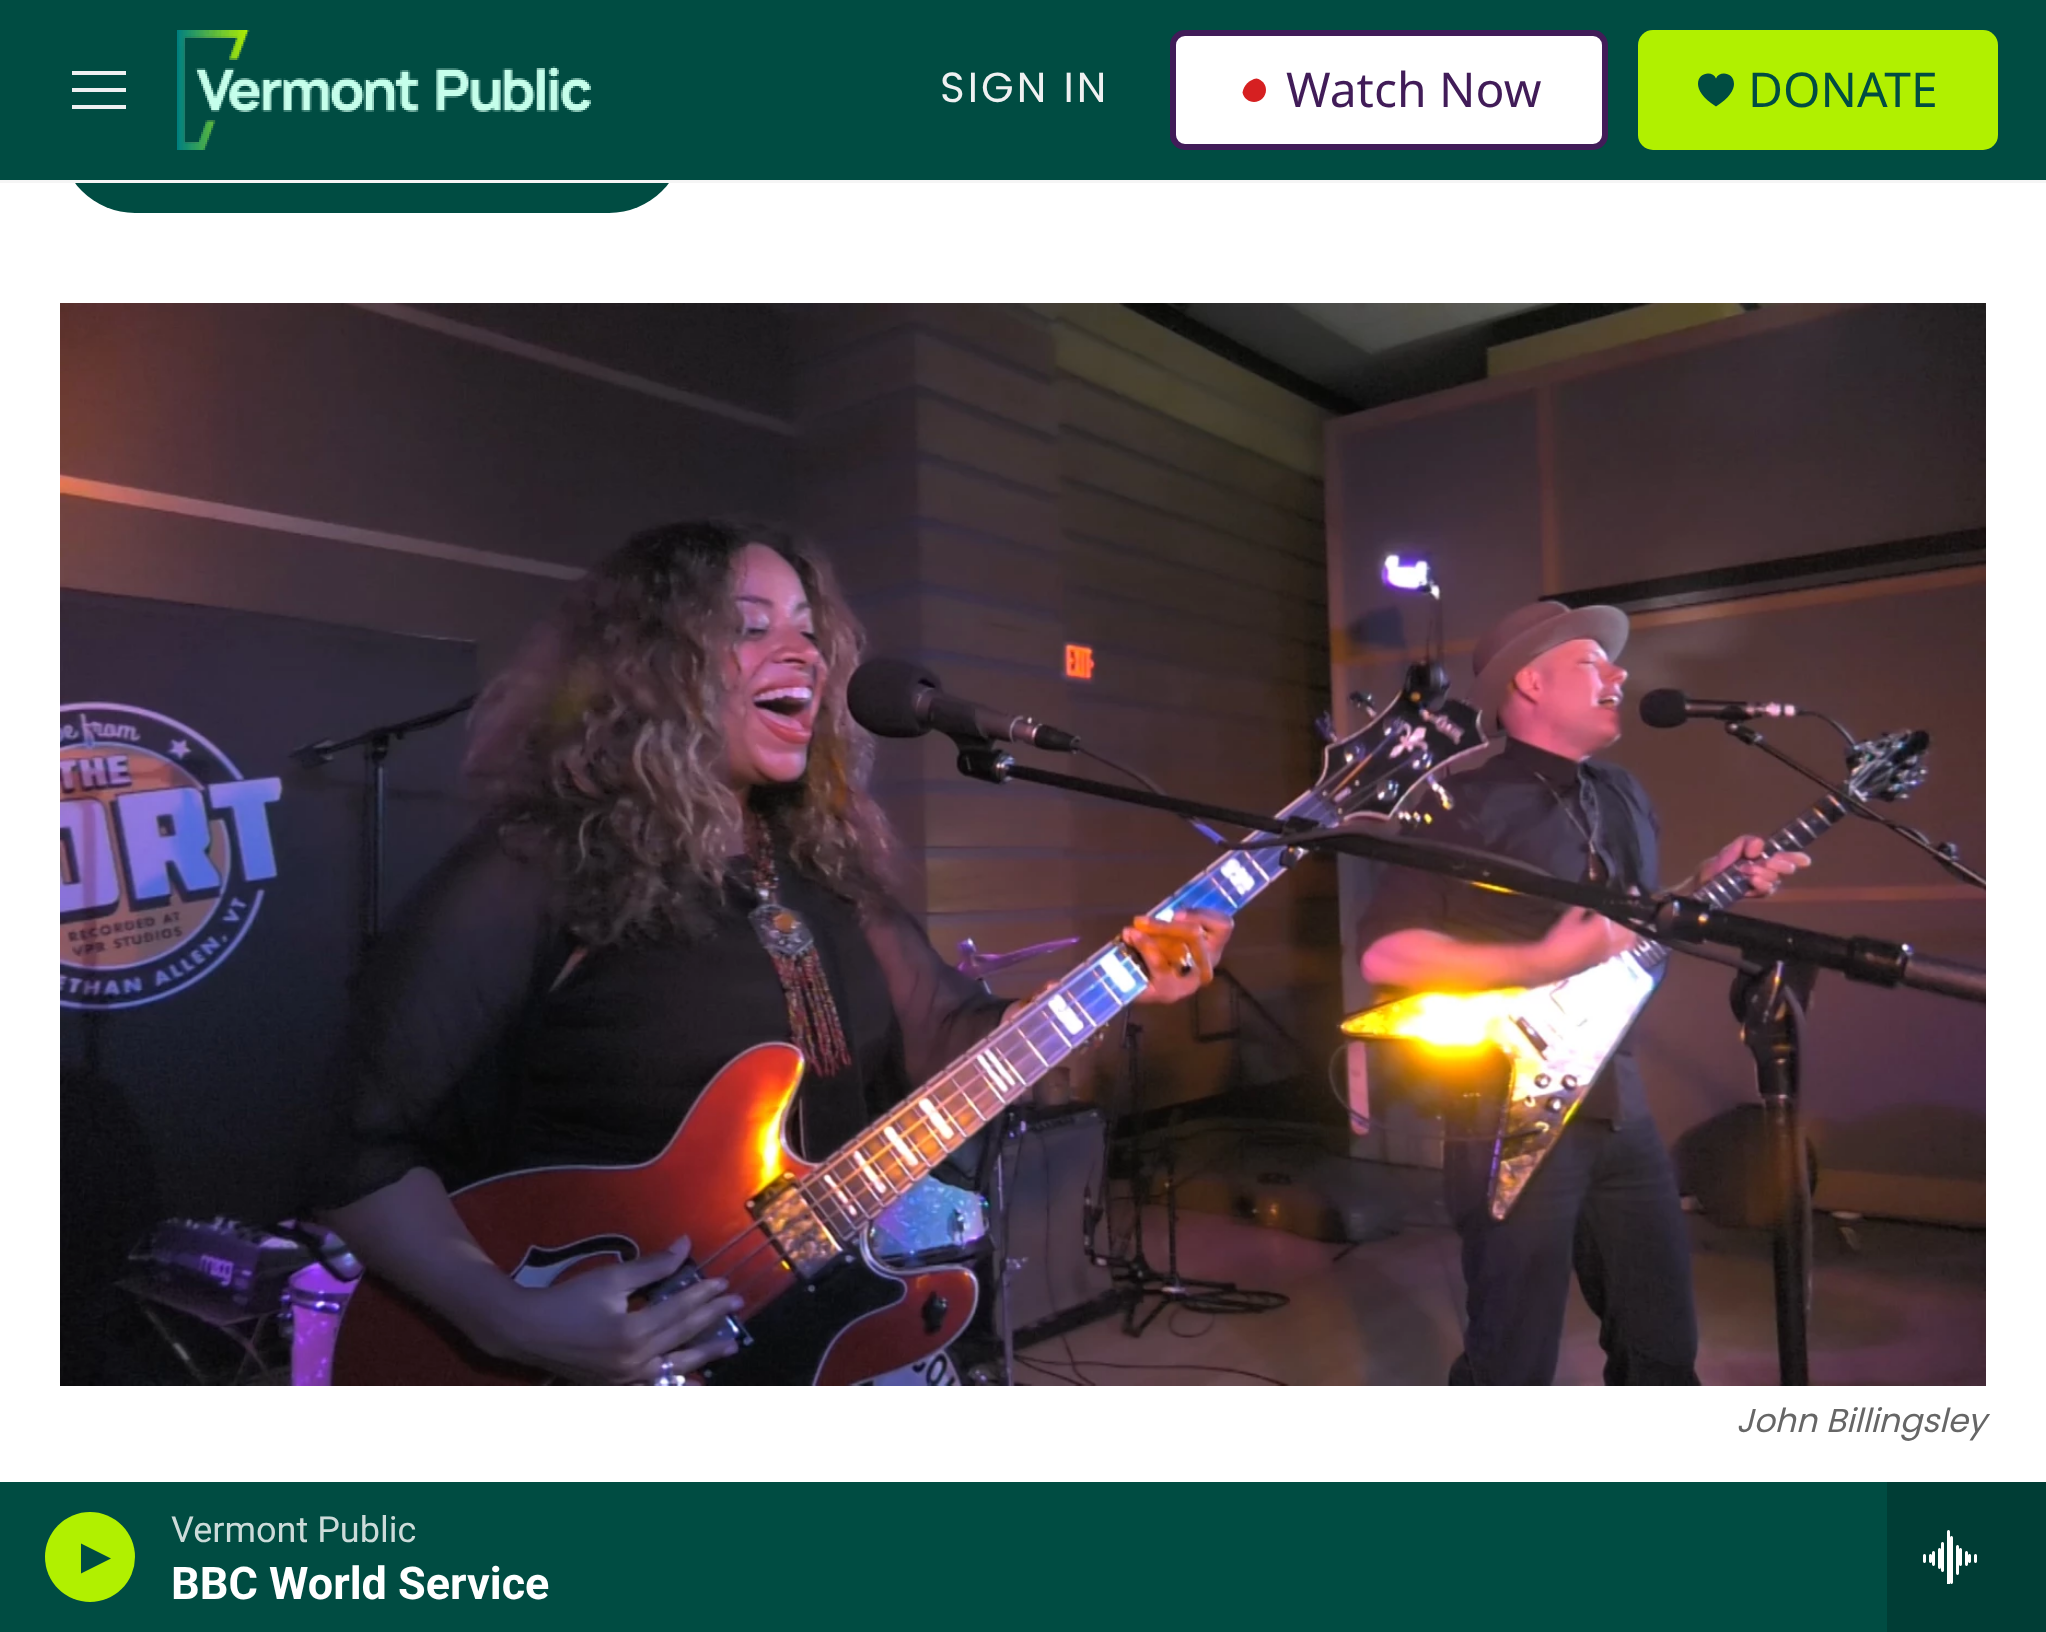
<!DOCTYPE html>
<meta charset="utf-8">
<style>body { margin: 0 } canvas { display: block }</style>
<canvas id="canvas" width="2046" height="1632"></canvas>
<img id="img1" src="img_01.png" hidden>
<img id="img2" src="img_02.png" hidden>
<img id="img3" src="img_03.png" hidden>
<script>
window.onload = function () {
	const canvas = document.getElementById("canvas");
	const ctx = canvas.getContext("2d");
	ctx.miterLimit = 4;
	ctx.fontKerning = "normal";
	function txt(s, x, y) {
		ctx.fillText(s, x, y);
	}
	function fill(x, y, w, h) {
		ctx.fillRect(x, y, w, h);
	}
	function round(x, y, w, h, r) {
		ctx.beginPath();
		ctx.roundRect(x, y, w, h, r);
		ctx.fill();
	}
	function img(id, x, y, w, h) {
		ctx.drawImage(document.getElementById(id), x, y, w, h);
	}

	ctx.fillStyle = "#FFFFFF";
	fill(0, 0, 2046, 1632);
	ctx.fillStyle = "#004C42";
	round(60, 63, 624, 150, 75);
	fill(0, 0, 2046, 180);
	ctx.fillStyle = "#F5F5F5";
	fill(0, 180, 2046, 3);
	ctx.fillStyle = "#EFF0F1";
	ctx.beginPath();
	ctx.moveTo(72, 92);
	ctx.lineTo(72, 88);
	ctx.lineTo(126, 88);
	ctx.lineTo(126, 92);
	ctx.closePath();
	ctx.moveTo(72, 75);
	ctx.lineTo(72, 71);
	ctx.lineTo(126, 71);
	ctx.lineTo(126, 75);
	ctx.closePath();
	ctx.moveTo(72, 109);
	ctx.lineTo(72, 105);
	ctx.lineTo(126, 105);
	ctx.lineTo(126, 109);
	ctx.closePath();
	ctx.fill("evenodd");
	img("img1", 177, 30, 414, 120);
	ctx.fillStyle = "#FFFFFF";
	ctx.beginPath();
	ctx.roundRect(1173, 33, 432, 114, 12);
	ctx.fill();
	ctx.strokeStyle = "#411C58";
	ctx.lineWidth = 6;
	ctx.stroke();
	ctx.fillStyle = "#D62021";
	ctx.beginPath();
	ctx.moveTo(1256.5, 78.5);
	ctx.bezierCurveTo(1262, 79.5, 1266, 84.5, 1266, 90);
	ctx.bezierCurveTo(1266, 96.5, 1260.5, 102, 1254, 102);
	ctx.bezierCurveTo(1248.5, 102, 1243.5, 98, 1242.5, 92.5);
	ctx.bezierCurveTo(1243.5, 85.5, 1249.5, 79.5, 1256.5, 78.5);
	ctx.closePath();
	ctx.fill();
	ctx.fillStyle = "#B1F000";
	round(1638, 30, 360, 120, 15);
	ctx.fillStyle = "#004C42";
	ctx.beginPath();
	ctx.moveTo(1716, 78.5);
	ctx.bezierCurveTo(1713, 70.5, 1698, 72, 1698, 84);
	ctx.bezierCurveTo(1698, 90, 1702.5, 98, 1716, 106.5);
	ctx.bezierCurveTo(1729.5, 98, 1734, 90, 1734, 84);
	ctx.bezierCurveTo(1734, 72, 1719, 70.5, 1716, 78.5);
	ctx.closePath();
	ctx.fill();
	fill(0, 1482, 1887, 150);
	ctx.fillStyle = "#B1F000";
	ctx.beginPath();
	ctx.arc(90, 1557, 45, 0, Math.PI * 2);
	ctx.fill();
	ctx.fillStyle = "#004C42";
	ctx.beginPath();
	ctx.moveTo(81, 1543.5);
	ctx.lineTo(111, 1558.5);
	ctx.lineTo(81, 1573.5);
	ctx.closePath();
	ctx.fill();
	ctx.fillStyle = "#003D35";
	fill(1887, 1482, 159, 150);
	img("img2", 1923, 1530, 54, 54);
	img("img3", 60, 303, 1926, 1083);
	ctx.letterSpacing = "3px";
	ctx.font = "42px Poppins";
	ctx.fillStyle = "#EFF0F1";
	txt("SIGN IN", 940, 102);
	ctx.letterSpacing = "0px";
	ctx.font = "48px Noto Sans";
	ctx.fillStyle = "#411C58";
	txt("Watch Now", 1286, 107);
	ctx.fillStyle = "#004C42";
	txt("DONATE", 1748, 107);
	ctx.font = "36px Roboto";
	ctx.fillStyle = "#CCDBD9";
	txt("Vermont Public", 171, 1542);
	ctx.font = "bold 45px Roboto";
	ctx.fillStyle = "#FFFFFF";
	txt("BBC World Service", 171, 1599);
	ctx.font = "italic 33px Poppins";
	ctx.fillStyle = "#666666";
	txt("John Billingsley", 1736, 1432);
};
</script>
